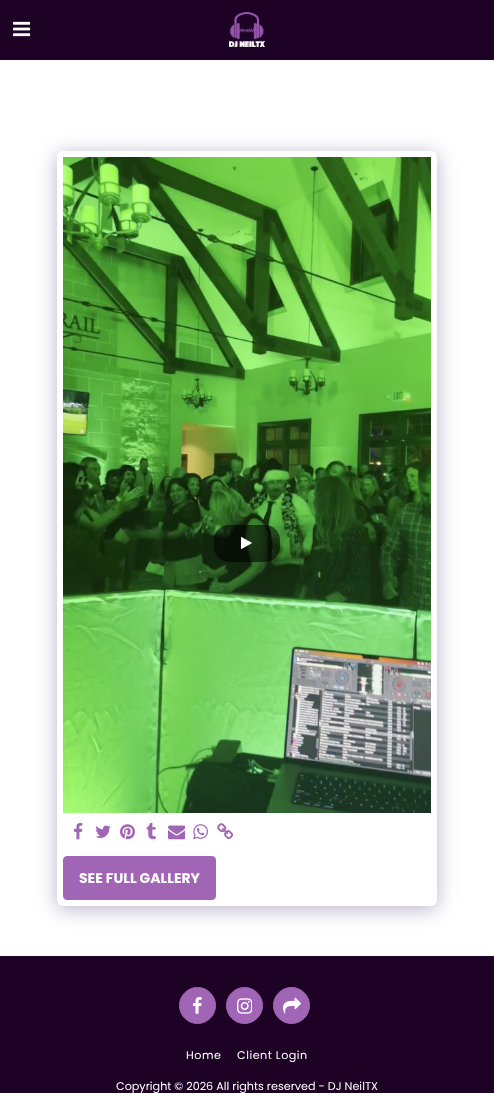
<!DOCTYPE html>
<meta charset="utf-8">
<style>body { margin: 0 } canvas { display: block }</style>
<canvas id="canvas" width="494" height="1093"></canvas>
<img id="img1" src="img_01.png" hidden>
<img id="img2" src="img_02.png" hidden>
<img id="img3" src="img_03.png" hidden>
<img id="img4" src="img_04.png" hidden>
<img id="img5" src="img_05.png" hidden>
<img id="img6" src="img_06.png" hidden>
<img id="img7" src="img_07.png" hidden>
<img id="img8" src="img_08.png" hidden>
<img id="img9" src="img_09.png" hidden>
<img id="img10" src="img_10.png" hidden>
<img id="img11" src="img_11.png" hidden>
<img id="img12" src="img_12.png" hidden>
<img id="img13" src="img_13.png" hidden>
<img id="img14" src="img_14.png" hidden>
<script>
window.onload = function () {
	const canvas = document.getElementById("canvas");
	const ctx = canvas.getContext("2d");
	ctx.miterLimit = 4;
	ctx.fontKerning = "normal";
	function txt(s, x, y) {
		ctx.fillText(s, x, y);
	}
	function fill(x, y, w, h) {
		ctx.fillRect(x, y, w, h);
	}
	function round(x, y, w, h, r) {
		ctx.beginPath();
		ctx.roundRect(x, y, w, h, r);
		ctx.fill();
	}
	function img(id, x, y, w, h) {
		ctx.drawImage(document.getElementById(id), x, y, w, h);
	}

	ctx.fillStyle = "#FFFFFF";
	fill(0, 0, 494, 1093);
	ctx.fillStyle = "#1D0225";
	fill(0, 0, 494, 59);
	ctx.fillStyle = "#23052D";
	fill(0, 59, 494, 1);
	img("img1", 13, 21, 18, 16);
	img("img2", 229, 12, 36, 35);
	ctx.fillStyle = "rgba(77, 63, 122, 0.4)";
	ctx.filter = "blur(10px)";
	ctx.beginPath();
	ctx.roundRect(57, 154, 380, 755, 6);
	ctx.fill();
	ctx.filter = "none";
	ctx.fillStyle = "#FFFFFF";
	round(57, 151, 380, 755, 6);
	img("img3", 63, 157, 368, 656);
	ctx.fillStyle = "rgba(0, 0, 0, 0.57)";
	round(214, 525, 66, 37, 15);
	img("img4", 241, 537, 11, 12);
	img("img5", 73, 823, 10, 17);
	img("img6", 95, 825, 16, 13);
	img("img7", 120, 824, 15, 16);
	img("img8", 146, 823, 10, 17);
	img("img9", 168, 825, 17, 15);
	img("img10", 193, 824, 15, 16);
	img("img11", 217, 823, 16, 17);
	ctx.fillStyle = "#A165B5";
	ctx.beginPath();
	ctx.roundRect(63.5, 856.5, 152, 43, 3.5);
	ctx.fill();
	ctx.strokeStyle = "#A165B5";
	ctx.stroke();
	ctx.fillStyle = "#23052D";
	fill(0, 956, 494, 1);
	ctx.fillStyle = "#1D0225";
	fill(0, 957, 494, 136);
	ctx.fillStyle = "#A165B5";
	ctx.beginPath();
	ctx.arc(197.5, 1005.5, 18, 0, Math.PI * 2);
	ctx.fill();
	ctx.stroke();
	img("img12", 192, 997, 10, 17);
	ctx.beginPath();
	ctx.arc(244.5, 1005.5, 18, 0, Math.PI * 2);
	ctx.fill();
	ctx.stroke();
	img("img13", 237, 998, 15, 16);
	ctx.beginPath();
	ctx.arc(291.5, 1005.5, 18, 0, Math.PI * 2);
	ctx.fill();
	ctx.stroke();
	img("img14", 283, 997, 18, 17);
	ctx.font = "bold 14px Poppins";
	ctx.fillStyle = "#FFFFFF";
	txt("SEE FULL GALLERY", 79, 883);
	ctx.letterSpacing = "0.5px";
	ctx.font = "11.2px Poppins";
	txt("Home", 186, 1059);
	txt("Client Login", 237, 1059);
	ctx.letterSpacing = "0px";
	txt("Copyright © 2026 All rights reserved - DJ NeilTX", 116, 1090);
};
</script>
